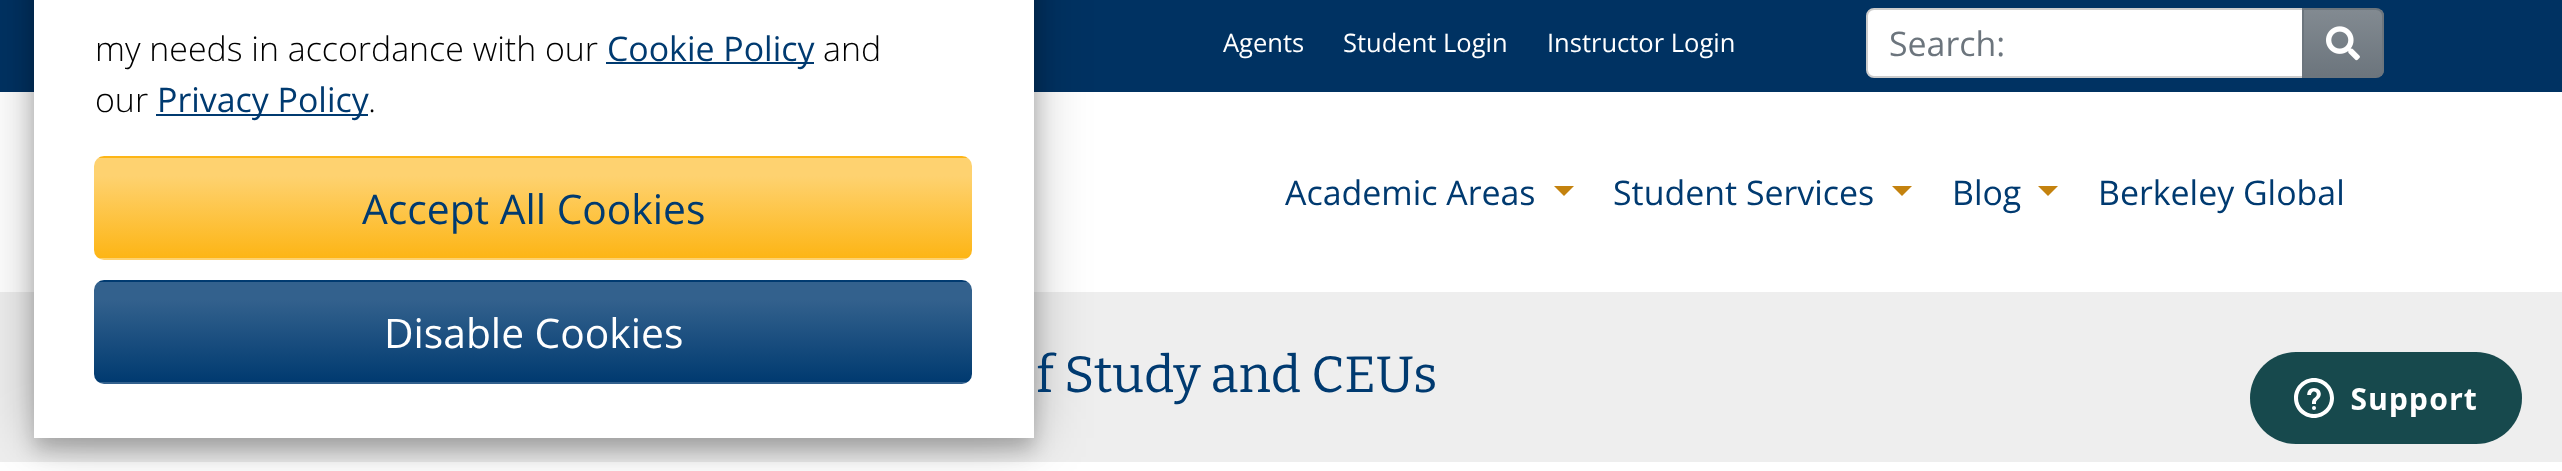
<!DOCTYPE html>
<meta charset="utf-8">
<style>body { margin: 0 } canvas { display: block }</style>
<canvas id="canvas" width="2562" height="471"></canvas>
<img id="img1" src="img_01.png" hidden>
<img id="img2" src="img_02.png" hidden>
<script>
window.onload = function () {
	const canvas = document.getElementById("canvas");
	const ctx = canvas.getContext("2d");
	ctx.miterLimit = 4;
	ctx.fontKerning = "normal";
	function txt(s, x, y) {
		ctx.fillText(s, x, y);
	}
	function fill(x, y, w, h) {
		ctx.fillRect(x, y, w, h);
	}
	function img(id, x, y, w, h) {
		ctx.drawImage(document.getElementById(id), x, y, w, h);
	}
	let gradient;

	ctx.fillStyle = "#FFFFFF";
	fill(0, 0, 2562, 471);
	ctx.fillStyle = "#003262";
	fill(0, 0, 2562, 92);
	ctx.fillStyle = "#EEEEEE";
	fill(0, 292, 2562, 170);
	ctx.fillStyle = "rgba(0, 0, 0, 0.22)";
	ctx.filter = "blur(10px)";
	ctx.beginPath();
	ctx.rect(34, -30, 1000, 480);
	ctx.fill();
	ctx.filter = "none";
	ctx.fillStyle = "rgba(0, 0, 0, 0.25)";
	ctx.filter = "blur(28px)";
	ctx.beginPath();
	ctx.rect(34, -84, 1000, 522);
	ctx.fill();
	ctx.filter = "none";
	ctx.fillStyle = "#FFFFFF";
	fill(34, 0, 1000, 438);
	ctx.fillStyle = "#003A70";
	fill(606, 62, 208, 2);
	fill(156, 114, 212, 2);
	ctx.save();
	ctx.beginPath();
	ctx.roundRect(94, 156, 878, 104, 10);
	ctx.clip();
	gradient = ctx.createLinearGradient(533, 58, 533, 158);
	gradient.addColorStop(0, "#FED270");
	gradient.addColorStop(0.18, "#FED270");
	gradient.addColorStop(1, "#FDB515");
	ctx.fillStyle = gradient;
	fill(94, 156, 878, 2);
	gradient = ctx.createLinearGradient(533, 158, 533, 258);
	gradient.addColorStop(0, "#FED270");
	gradient.addColorStop(0.18, "#FED270");
	gradient.addColorStop(1, "#FDB515");
	ctx.fillStyle = gradient;
	fill(94, 158, 878, 100);
	gradient = ctx.createLinearGradient(533, 258, 533, 358);
	gradient.addColorStop(0, "#FED270");
	gradient.addColorStop(0.18, "#FED270");
	gradient.addColorStop(1, "#FDB515");
	ctx.fillStyle = gradient;
	fill(94, 258, 878, 2);
	ctx.restore();
	ctx.save();
	ctx.beginPath();
	ctx.roundRect(94, 280, 878, 104, 10);
	ctx.clip();
	gradient = ctx.createLinearGradient(533, 182, 533, 282);
	gradient.addColorStop(0, "#33618D");
	gradient.addColorStop(0.18, "#33618D");
	gradient.addColorStop(1, "#003A70");
	ctx.fillStyle = gradient;
	fill(94, 280, 878, 2);
	gradient = ctx.createLinearGradient(533, 282, 533, 382);
	gradient.addColorStop(0, "#33618D");
	gradient.addColorStop(0.18, "#33618D");
	gradient.addColorStop(1, "#003A70");
	ctx.fillStyle = gradient;
	fill(94, 282, 878, 100);
	gradient = ctx.createLinearGradient(533, 382, 533, 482);
	gradient.addColorStop(0, "#33618D");
	gradient.addColorStop(0.18, "#33618D");
	gradient.addColorStop(1, "#003A70");
	ctx.fillStyle = gradient;
	fill(94, 382, 878, 2);
	ctx.restore();
	ctx.fillStyle = "#FFFFFF";
	ctx.beginPath();
	ctx.roundRect(1867, 9, 436, 68, [7, 0, 0, 7]);
	ctx.fill();
	ctx.strokeStyle = "#CCCCCC";
	ctx.lineWidth = 2;
	ctx.stroke();
	ctx.save();
	ctx.beginPath();
	ctx.roundRect(2302, 8, 82, 70, [0, 8, 8, 0]);
	ctx.clip();
	gradient = ctx.createLinearGradient(2343, 10, 2343, 76);
	gradient.addColorStop(0, "#828A91");
	gradient.addColorStop(1, "#6C757D");
	ctx.fillStyle = gradient;
	fill(2304, 10, 80, 66);
	ctx.restore();
	ctx.beginPath();
	ctx.roundRect(2303, 9, 80, 68, [0, 7, 7, 0]);
	ctx.strokeStyle = "#6C757D";
	ctx.stroke();
	img("img1", 2326, 26, 34, 35);
	ctx.fillStyle = "#C4820E";
	ctx.beginPath();
	ctx.moveTo(1554, 186);
	ctx.lineTo(1574, 186);
	ctx.lineTo(1564, 196);
	ctx.closePath();
	ctx.fill();
	ctx.beginPath();
	ctx.moveTo(1892, 186);
	ctx.lineTo(1912, 186);
	ctx.lineTo(1902, 196);
	ctx.closePath();
	ctx.fill();
	ctx.beginPath();
	ctx.moveTo(2038, 186);
	ctx.lineTo(2058, 186);
	ctx.lineTo(2048, 196);
	ctx.closePath();
	ctx.fill();
	img("img2", 2250, 352, 272, 92);
	ctx.font = "300 33.9px Open Sans";
	ctx.fillStyle = "#000000";
	txt("my needs in accordance with our", 95, 61);
	ctx.font = "33.9px Open Sans";
	ctx.fillStyle = "#003A70";
	txt("Cookie Policy", 607, 61);
	ctx.font = "300 33.9px Open Sans";
	ctx.fillStyle = "#000000";
	txt("and", 823, 61);
	txt("our", 95, 112);
	ctx.font = "33.9px Open Sans";
	ctx.fillStyle = "#003A70";
	txt("Privacy Policy", 157, 112);
	ctx.font = "300 33.9px Open Sans";
	ctx.fillStyle = "#000000";
	txt(".", 368, 112);
	ctx.font = "40.75px Open Sans";
	ctx.fillStyle = "#003A70";
	txt("Accept All Cookies", 362, 224);
	ctx.fillStyle = "#FFFFFF";
	txt("Disable Cookies", 384, 348);
	ctx.font = "25.5px Open Sans";
	txt("Agents", 1223, 52);
	txt("Student Login", 1343, 52);
	txt("Instructor Login", 1547, 52);
	ctx.font = "33.9px Open Sans";
	ctx.fillStyle = "#6C757D";
	txt("Search:", 1889, 56);
	ctx.fillStyle = "#003A70";
	txt("Academic Areas", 1285, 205);
	txt("Student Services", 1613, 205);
	txt("Blog", 1952, 205);
	txt("Berkeley Global", 2098, 205);
	ctx.font = "100 51px Bitter";
	txt("f Study and CEUs", 1036, 392);
};
</script>
